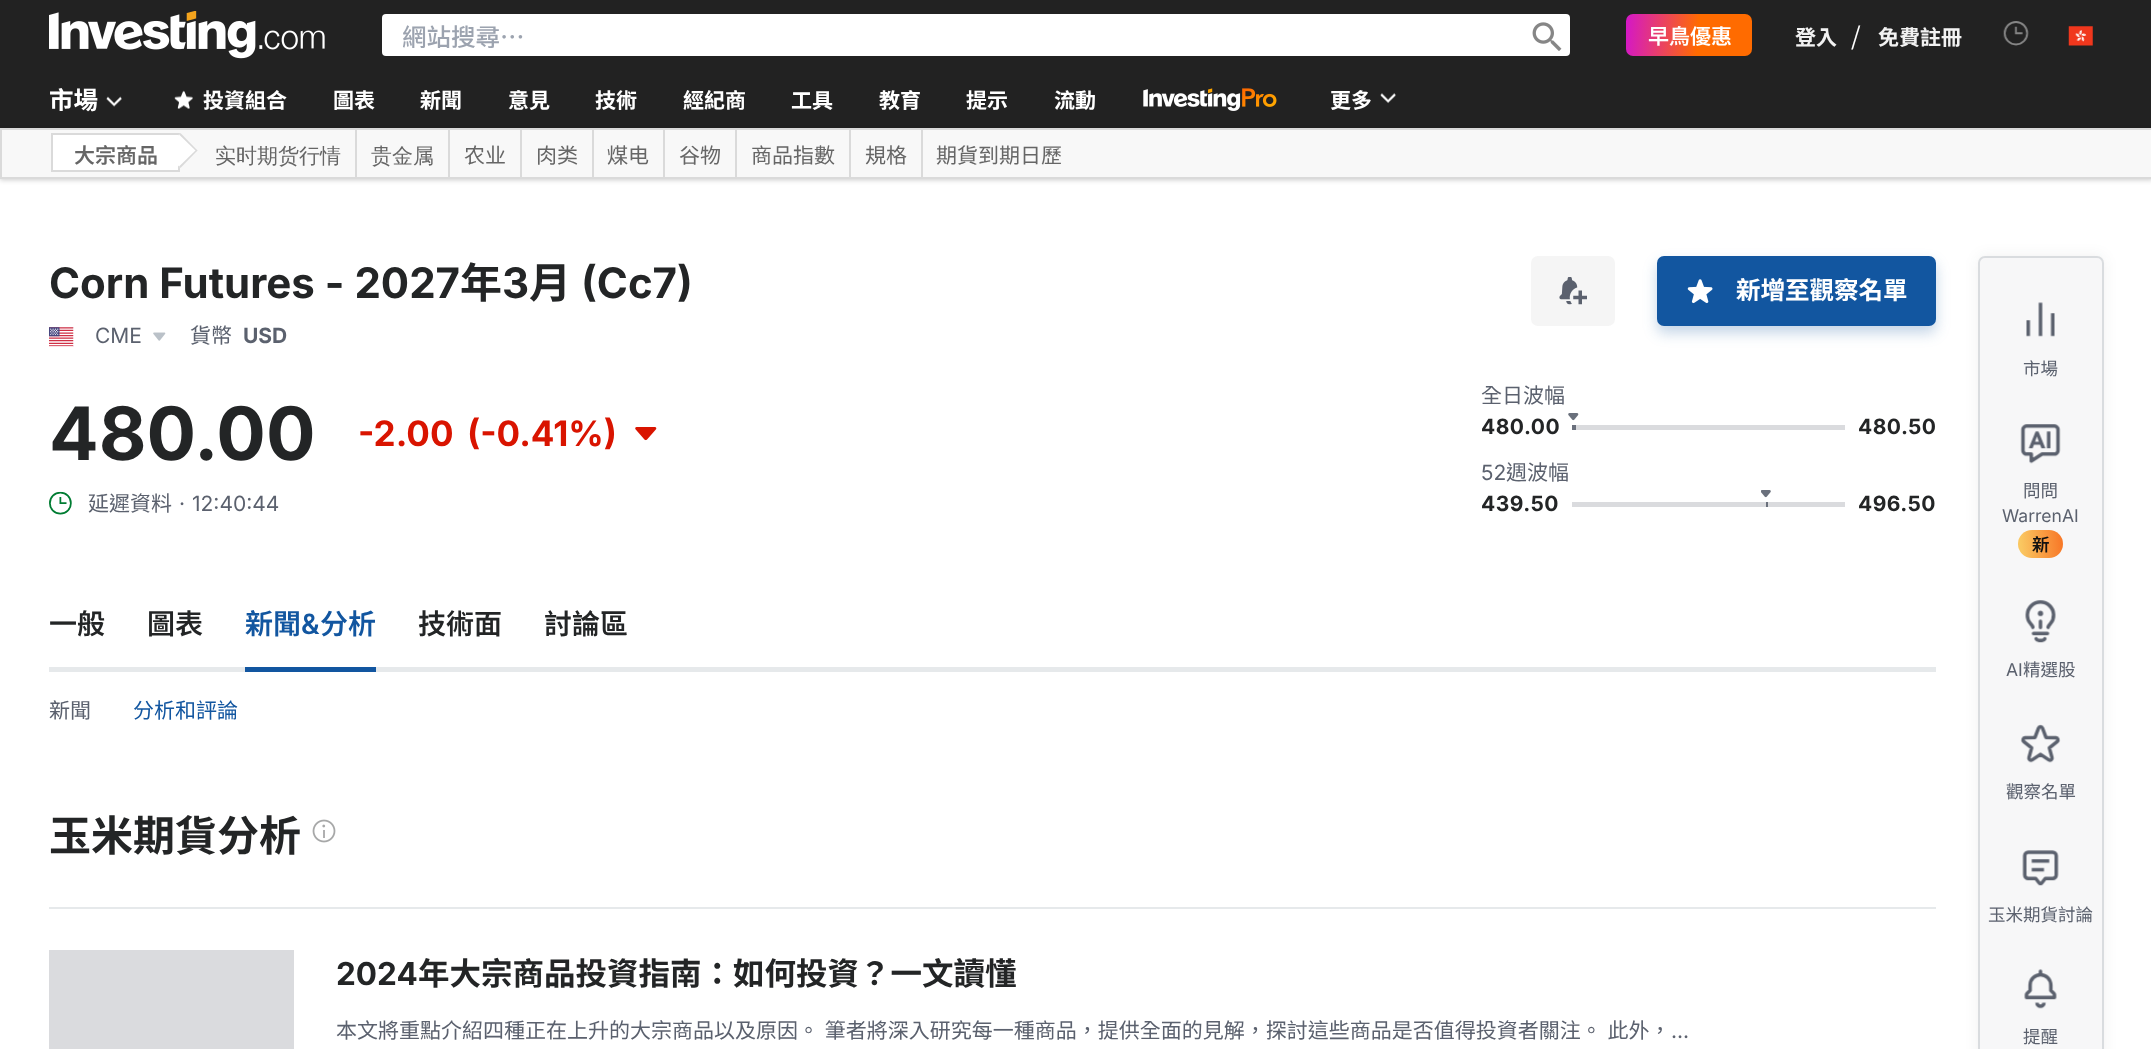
<!DOCTYPE html>
<meta charset="utf-8">
<style>body { margin: 0 } canvas { display: block }</style>
<canvas id="canvas" width="2151" height="1049"></canvas>
<img id="img1" src="img_01.png" hidden>
<img id="img2" src="img_02.png" hidden>
<img id="img3" src="img_03.png" hidden>
<img id="img4" src="img_04.png" hidden>
<img id="img5" src="img_05.png" hidden>
<img id="img6" src="img_06.png" hidden>
<img id="img7" src="img_07.png" hidden>
<img id="img8" src="img_08.png" hidden>
<img id="img9" src="img_09.png" hidden>
<img id="img10" src="img_10.png" hidden>
<img id="img11" src="img_11.png" hidden>
<img id="img12" src="img_12.png" hidden>
<img id="img13" src="img_13.png" hidden>
<img id="img14" src="img_14.png" hidden>
<img id="img15" src="img_15.png" hidden>
<img id="img16" src="img_16.png" hidden>
<img id="img17" src="img_17.png" hidden>
<img id="img18" src="img_18.png" hidden>
<img id="img19" src="img_19.png" hidden>
<img id="img20" src="img_20.png" hidden>
<img id="img21" src="img_21.png" hidden>
<img id="img22" src="img_22.png" hidden>
<img id="img23" src="img_23.png" hidden>
<script>
window.onload = function () {
	const canvas = document.getElementById("canvas");
	const ctx = canvas.getContext("2d");
	ctx.miterLimit = 4;
	ctx.fontKerning = "normal";
	function txt(s, x, y) {
		ctx.fillText(s, x, y);
	}
	function fill(x, y, w, h) {
		ctx.fillRect(x, y, w, h);
	}
	function round(x, y, w, h, r) {
		ctx.beginPath();
		ctx.roundRect(x, y, w, h, r);
		ctx.fill();
	}
	function img(id, x, y, w, h) {
		ctx.drawImage(document.getElementById(id), x, y, w, h);
	}
	let gradient;

	ctx.fillStyle = "#FFFFFF";
	fill(0, 0, 2151, 1049);
	ctx.fillStyle = "#222222";
	fill(0, 0, 2151, 128);
	img("img1", 49, 11, 276, 48);
	ctx.fillStyle = "#FFFFFF";
	round(382, 14, 1188, 42, 4);
	img("img2", 1532, 22, 30, 29);
	gradient = ctx.createLinearGradient(1753, 39, 1605, 29);
	gradient.addColorStop(0.37, "#FF6B00");
	gradient.addColorStop(1, "#C800FF");
	ctx.fillStyle = gradient;
	round(1626, 14, 126, 42, 7);
	img("img3", 2003, 21, 26, 25);
	img("img4", 2068, 26, 25, 20);
	img("img5", 106, 96, 16, 11);
	img("img6", 174, 90, 19, 19);
	img("img7", 1143, 88, 134, 23);
	img("img8", 1380, 93, 16, 11);
	ctx.fillStyle = "rgba(0, 0, 0, 0.2)";
	ctx.filter = "blur(2.5px)";
	ctx.beginPath();
	ctx.rect(0, 130, 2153, 50);
	ctx.fill();
	ctx.filter = "none";
	ctx.fillStyle = "#F8F8F8";
	ctx.beginPath();
	ctx.rect(1, 129, 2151, 49);
	ctx.fill();
	ctx.strokeStyle = "#DADADA";
	ctx.lineWidth = 2;
	ctx.stroke();
	ctx.fillStyle = "#FFFFFF";
	ctx.beginPath();
	ctx.rect(52, 134, 127, 37);
	ctx.fill();
	ctx.stroke();
	ctx.beginPath();
	ctx.moveTo(180.5, 133);
	ctx.lineTo(197.5, 150.5);
	ctx.lineTo(180.5, 168);
	ctx.lineTo(163, 150.5);
	ctx.closePath();
	ctx.fill();
	ctx.fillStyle = "#DADADA";
	ctx.beginPath();
	ctx.moveTo(180.5, 133);
	ctx.lineTo(197.5, 150.5);
	ctx.lineTo(196.5, 151.5);
	ctx.lineTo(179, 134.5);
	ctx.closePath();
	ctx.fill();
	ctx.beginPath();
	ctx.moveTo(196.5, 149.5);
	ctx.lineTo(197.5, 150.5);
	ctx.lineTo(180.5, 168);
	ctx.lineTo(179, 166.5);
	ctx.closePath();
	ctx.fill();
	fill(355, 130, 2, 47);
	fill(448, 130, 2, 47);
	fill(520, 130, 2, 47);
	fill(592, 130, 2, 47);
	fill(663, 130, 2, 47);
	fill(735, 130, 2, 47);
	fill(849, 130, 2, 47);
	fill(921, 130, 2, 47);
	img("img9", 49, 327, 25, 20);
	img("img10", 153, 332, 13, 9);
	ctx.fillStyle = "#F5F5F5";
	round(1531, 256, 84, 70, 7);
	img("img11", 1559, 277, 28, 28);
	ctx.fillStyle = "rgba(18, 86, 160, 0.25)";
	ctx.filter = "blur(7px)";
	ctx.beginPath();
	ctx.roundRect(1657, 263, 279, 70, 7);
	ctx.fill();
	ctx.filter = "none";
	ctx.fillStyle = "#1256A0";
	round(1657, 256, 279, 70, 7);
	img("img12", 1687, 279, 26, 25);
	img("img13", 635, 427, 22, 14);
	img("img14", 49, 491, 23, 24);
	ctx.fillStyle = "#DADBDE";
	fill(1573, 425, 272, 5);
	img("img15", 1568, 413, 11, 8);
	ctx.fillStyle = "#6A707C";
	fill(1572, 425, 4, 5);
	ctx.fillStyle = "#DADBDE";
	fill(1572, 502, 273, 5);
	img("img16", 1761, 490, 10, 8);
	ctx.fillStyle = "#6A707C";
	fill(1766, 502, 2, 5);
	ctx.fillStyle = "#E6E9EB";
	fill(49, 667, 1887, 5);
	ctx.fillStyle = "#1256A0";
	fill(245, 667, 131, 5);
	img("img17", 312, 819, 24, 24);
	ctx.fillStyle = "#E6E9EB";
	fill(49, 907, 1887, 2);
	ctx.fillStyle = "#DADBDE";
	fill(49, 950, 245, 99);
	ctx.fillStyle = "rgba(35, 37, 38, 0.07)";
	ctx.filter = "blur(7px)";
	ctx.beginPath();
	ctx.roundRect(1978, 256, 126, 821, 7);
	ctx.fill();
	ctx.filter = "none";
	ctx.fillStyle = "#F7F7F8";
	ctx.beginPath();
	ctx.roundRect(1979, 257, 124, 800, 6);
	ctx.fill();
	ctx.strokeStyle = "#D9DCDF";
	ctx.stroke();
	img("img18", 2026, 302, 29, 35);
	img("img19", 2020, 424, 41, 40);
	gradient = ctx.createLinearGradient(2017, 546, 2071, 542);
	gradient.addColorStop(0.07, "#FAC761");
	gradient.addColorStop(1, "#F7681C");
	ctx.fillStyle = gradient;
	round(2018, 530, 45, 28, 14);
	img("img20", 2025, 600, 31, 43);
	img("img21", 2020, 724, 41, 39);
	img("img22", 2022, 850, 37, 36);
	img("img23", 2024, 969, 33, 40);
	ctx.save();
	ctx.beginPath();
	ctx.rect(403, 18, 1097, 35);
	ctx.clip();
	ctx.font = "500 24.5px Noto Sans HK";
	ctx.fillStyle = "#9CA3AF";
	txt("網站搜尋…", 402, 46);
	ctx.restore();
	ctx.font = "600 21px Noto Sans HK";
	ctx.fillStyle = "#FFFFFF";
	txt("早鳥優惠", 1648, 44);
	ctx.font = "bold 21px Noto Sans HK";
	ctx.fillStyle = "#F2F2F2";
	txt("登入", 1795, 45);
	ctx.font = "24.5px Noto Sans HK";
	ctx.fillStyle = "#FFFFFF";
	txt("/", 1851, 45);
	ctx.font = "bold 21px Noto Sans HK";
	ctx.fillStyle = "#F2F2F2";
	txt("免費註冊", 1878, 45);
	ctx.font = "bold 24.5px Noto Sans HK";
	ctx.fillStyle = "#FFFFFF";
	txt("市場", 49, 109);
	ctx.font = "bold 21px Noto Sans HK";
	txt("投資組合", 203, 108);
	txt("圖表", 333, 108);
	txt("新聞", 420, 108);
	txt("意見", 508, 108);
	txt("技術", 595, 108);
	txt("經紀商", 683, 108);
	txt("工具", 791, 108);
	txt("教育", 879, 108);
	txt("提示", 966, 108);
	txt("流動", 1054, 108);
	txt("更多", 1330, 108);
	ctx.font = "600 21px Noto Sans HK";
	ctx.fillStyle = "#666666";
	txt("大宗商品", 74, 163);
	ctx.font = "500 21px WenQuanYi Zen Hei";
	txt("实时期货行情", 215, 163);
	txt("贵金属", 371, 163);
	ctx.font = "21px Noto Sans HK";
	txt("农业", 464, 163);
	txt("肉类", 536, 163);
	txt("煤电", 607, 163);
	txt("谷物", 679, 163);
	txt("商品指數", 751, 163);
	txt("規格", 865, 163);
	txt("期貨到期日歷", 936, 163);
	ctx.font = "bold 42px Inter";
	ctx.fillStyle = "#232526";
	txt("Corn Futures - 2027", 49, 298);
	ctx.font = "bold 42px Noto Sans HK";
	txt("年", 460, 298);
	ctx.font = "bold 42px Inter";
	txt("3", 502, 298);
	ctx.font = "bold 42px Noto Sans HK";
	txt("月", 529, 298);
	ctx.font = "bold 42px Inter";
	txt("(Cc7)", 581, 298);
	ctx.font = "21px Inter";
	ctx.fillStyle = "#5B616E";
	txt("CME", 95, 343);
	ctx.font = "21px Noto Sans HK";
	txt("貨幣", 190, 343);
	ctx.font = "bold 21px Inter";
	txt("USD", 243, 343);
	ctx.font = "bold 24.5px Noto Sans HK";
	ctx.fillStyle = "#FFFFFF";
	txt("新增至觀察名單", 1736, 299);
	ctx.font = "bold 73.5px Inter";
	ctx.fillStyle = "#232526";
	txt("480.00", 49, 460);
	ctx.font = "bold 35px Inter";
	ctx.fillStyle = "#D91400";
	txt("-2.00", 358, 446);
	txt("(-0.41%)", 467, 446);
	ctx.font = "21px Noto Sans HK";
	ctx.fillStyle = "#5B616E";
	txt("延遲資料", 88, 511);
	ctx.font = "21px Inter";
	txt("·", 179, 511);
	txt("12:40:44", 192, 511);
	ctx.font = "21px Noto Sans HK";
	txt("全日波幅", 1481, 403);
	ctx.letterSpacing = "0.5px";
	ctx.font = "bold 21px Inter";
	ctx.fillStyle = "#232526";
	txt("480.00", 1481, 434);
	txt("480.50", 1858, 434);
	ctx.letterSpacing = "0px";
	ctx.font = "21px Inter";
	ctx.fillStyle = "#5B616E";
	txt("52", 1481, 480);
	ctx.font = "21px Noto Sans HK";
	txt("週波幅", 1506, 480);
	ctx.letterSpacing = "0.5px";
	ctx.font = "bold 21px Inter";
	ctx.fillStyle = "#232526";
	txt("439.50", 1481, 511);
	txt("496.50", 1858, 511);
	ctx.letterSpacing = "0px";
	ctx.font = "600 28px Noto Sans HK";
	txt("一般", 49, 634);
	txt("圖表", 147, 634);
	ctx.fillStyle = "#1256A0";
	txt("新聞", 245, 634);
	ctx.font = "600 28px Inter";
	txt("&", 301, 634);
	ctx.font = "600 28px Noto Sans HK";
	txt("分析", 320, 634);
	ctx.fillStyle = "#232526";
	txt("技術面", 418, 634);
	txt("討論區", 544, 634);
	ctx.font = "21px Noto Sans HK";
	ctx.fillStyle = "#5B616E";
	txt("新聞", 49, 718);
	ctx.fillStyle = "#1256A0";
	txt("分析和評論", 133, 718);
	ctx.font = "bold 42px Noto Sans HK";
	ctx.fillStyle = "#232526";
	txt("玉米期貨分析", 49, 851);
	ctx.font = "bold 31.5px Inter";
	txt("2024", 336, 985);
	ctx.font = "bold 31.5px Noto Sans HK";
	txt("年大宗商品投資指南：如何投資？一文讀懂", 418, 985);
	ctx.wordSpacing = "1px";
	ctx.font = "21px Noto Sans HK";
	ctx.fillStyle = "#5B616E";
	txt("本文將重點介紹四種正在上升的大宗商品以及原因。 筆者將深入研究每一種商品，提供全面的見解，探討這些商品是否值得投資者關注。 此外，", 336, 1038);
	ctx.wordSpacing = "0px";
	ctx.font = "21px Inter";
	txt("...", 1671, 1038);
	ctx.font = "17.5px Noto Sans HK";
	txt("市場", 2023, 375);
	txt("問問", 2023, 497);
	ctx.font = "17.5px Inter";
	txt("WarrenAI", 2002, 522);
	ctx.font = "600 17.5px Noto Sans HK";
	ctx.fillStyle = "#111111";
	txt("新", 2032, 551);
	ctx.font = "17.5px Inter";
	ctx.fillStyle = "#5B616E";
	txt("AI", 2006, 676);
	ctx.font = "17.5px Noto Sans HK";
	txt("精選股", 2023, 676);
	txt("觀察名單", 2006, 798);
	txt("玉米期貨討論", 1988, 921);
	txt("提醒", 2023, 1043);
};
</script>
